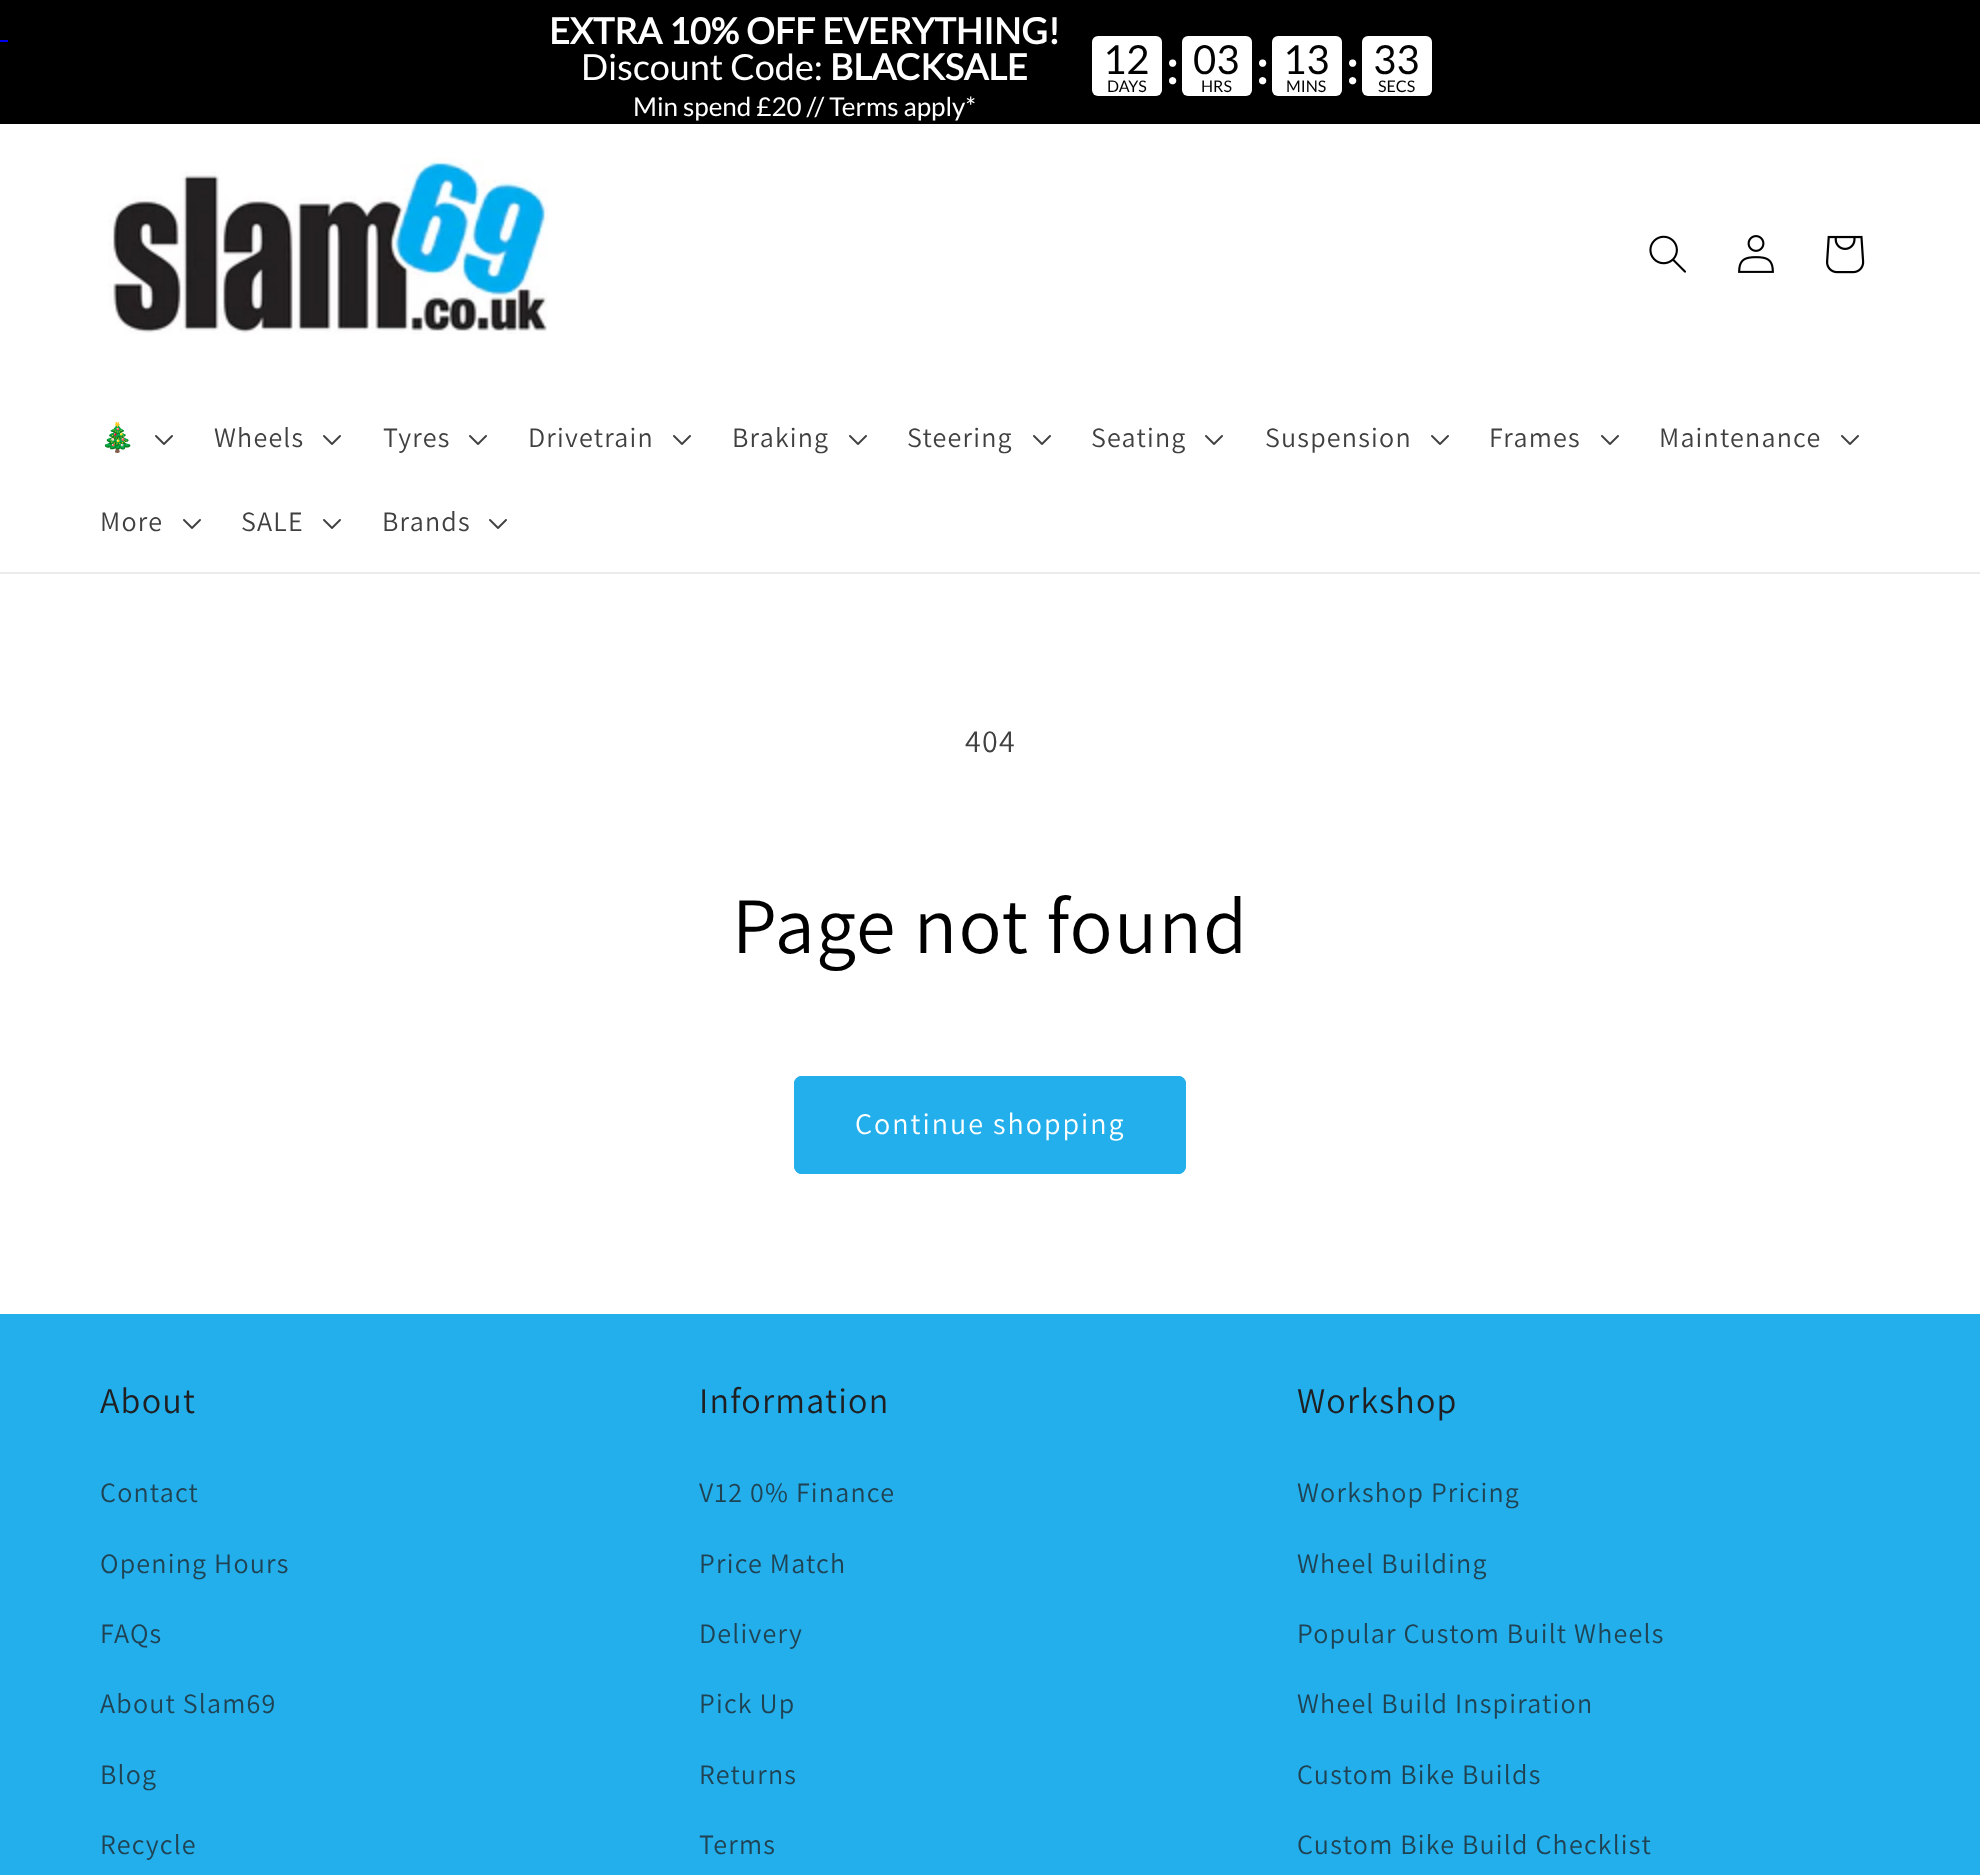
<!DOCTYPE html>
<meta charset="utf-8">
<style>body { margin: 0 } canvas { display: block }</style>
<canvas id="canvas" width="1980" height="1875"></canvas>
<img id="img1" src="img_01.png" hidden>
<img id="img2" src="img_02.png" hidden>
<img id="img3" src="img_03.png" hidden>
<img id="img4" src="img_04.png" hidden>
<img id="img5" src="img_05.png" hidden>
<script>
window.onload = function () {
	const canvas = document.getElementById("canvas");
	const ctx = canvas.getContext("2d");
	ctx.miterLimit = 4;
	ctx.fontKerning = "normal";
	function txt(s, x, y) {
		ctx.fillText(s, x, y);
	}
	function fill(x, y, w, h) {
		ctx.fillRect(x, y, w, h);
	}
	function round(x, y, w, h, r) {
		ctx.beginPath();
		ctx.roundRect(x, y, w, h, r);
		ctx.fill();
	}
	function img(id, x, y, w, h) {
		ctx.drawImage(document.getElementById(id), x, y, w, h);
	}

	ctx.fillStyle = "#FFFFFF";
	fill(0, 0, 1980, 1875);
	ctx.fillStyle = "#000000";
	fill(0, 0, 1980, 124);
	ctx.fillStyle = "#0000EE";
	fill(0, 40, 8, 2);
	ctx.fillStyle = "#FFFFFF";
	round(1092, 36, 70, 60, 6);
	round(1182, 36, 70, 60, 6);
	round(1272, 36, 70, 60, 6);
	round(1362, 36, 70, 60, 6);
	ctx.fillStyle = "#EBEBEB";
	fill(0, 572, 1980, 2);
	img("img1", 108, 158, 440, 176);
	img("img2", 1649, 235, 37, 38);
	img("img3", 1738, 235, 36, 38);
	img("img4", 1826, 235, 39, 39);
	img("img5", 155, 435, 18, 10);
	img("img5", 323, 435, 18, 10);
	img("img5", 469, 435, 18, 10);
	img("img5", 673, 435, 18, 10);
	img("img5", 849, 435, 18, 10);
	img("img5", 1033, 435, 18, 10);
	img("img5", 1205, 435, 18, 10);
	img("img5", 1431, 435, 18, 10);
	img("img5", 1601, 435, 18, 10);
	img("img5", 1841, 435, 18, 10);
	img("img5", 183, 519, 18, 10);
	img("img5", 323, 519, 18, 10);
	img("img5", 489, 519, 18, 10);
	ctx.fillStyle = "#23AFEB";
	round(794, 1076, 392, 98, 8);
	ctx.beginPath();
	ctx.roundRect(796, 1078, 388, 94, 6);
	ctx.strokeStyle = "#23AFEB";
	ctx.lineWidth = 4;
	ctx.stroke();
	fill(0, 1314, 1980, 561);
	ctx.font = "bold 36px Lato";
	ctx.fillStyle = "#FFFFFF";
	txt("EXTRA 10% OFF EVERYTHING!", 549, 44);
	ctx.font = "36px Lato";
	txt("Discount Code:", 581, 80);
	ctx.font = "bold 36px Lato";
	txt("BLACKSALE", 830, 80);
	ctx.font = "26px Lato";
	txt("Min spend £20 // Terms apply*", 633, 116);
	ctx.font = "40px Lato";
	ctx.fillStyle = "#000000";
	txt("12", 1103, 74);
	ctx.font = "16px Lato";
	txt("DAYS", 1107, 92);
	ctx.font = "bold 47px Lato";
	ctx.fillStyle = "#FFFFFF";
	txt(":", 1166, 84);
	ctx.font = "40px Lato";
	ctx.fillStyle = "#000000";
	txt("03", 1193, 74);
	ctx.font = "16px Lato";
	txt("HRS", 1201, 92);
	ctx.font = "bold 47px Lato";
	ctx.fillStyle = "#FFFFFF";
	txt(":", 1256, 84);
	ctx.font = "40px Lato";
	ctx.fillStyle = "#000000";
	txt("13", 1283, 74);
	ctx.font = "16px Lato";
	txt("MINS", 1286, 92);
	ctx.font = "bold 47px Lato";
	ctx.fillStyle = "#FFFFFF";
	txt(":", 1346, 84);
	ctx.font = "40px Lato";
	ctx.fillStyle = "#000000";
	txt("33", 1373, 74);
	ctx.font = "16px Lato";
	txt("SECS", 1378, 92);
	ctx.letterSpacing = "1.2px";
	ctx.font = "28px Noto Color Emoji";
	ctx.fillStyle = "#404040";
	txt("🎄", 100, 447);
	ctx.font = "28px Assistant";
	txt("Wheels", 214, 447);
	txt("Tyres", 383, 447);
	txt("Drivetrain", 528, 447);
	txt("Braking", 732, 447);
	txt("Steering", 907, 447);
	txt("Seating", 1091, 447);
	txt("Suspension", 1265, 447);
	txt("Frames", 1489, 447);
	txt("Maintenance", 1659, 447);
	txt("More", 100, 531);
	txt("SALE", 241, 531);
	txt("Brands", 382, 531);
	ctx.font = "32px Assistant";
	txt("404", 965, 752);
	ctx.font = "80px Assistant";
	ctx.fillStyle = "#000000";
	txt("Page not found", 732, 953);
	ctx.letterSpacing = "2px";
	ctx.font = "30px Assistant";
	ctx.fillStyle = "#FFFFFF";
	txt("Continue shopping", 855, 1134);
	ctx.letterSpacing = "1.2px";
	ctx.font = "36px Assistant";
	ctx.fillStyle = "#1F1F21";
	txt("About", 100, 1413);
	ctx.font = "28px Assistant";
	ctx.fillStyle = "#204354";
	txt("Contact", 100, 1502);
	txt("Opening Hours", 100, 1573);
	txt("FAQs", 100, 1643);
	txt("About Slam69", 100, 1713);
	txt("Blog", 100, 1784);
	txt("Recycle", 100, 1854);
	ctx.font = "36px Assistant";
	ctx.fillStyle = "#1F1F21";
	txt("Information", 699, 1413);
	ctx.font = "28px Assistant";
	ctx.fillStyle = "#204354";
	txt("V12 0% Finance", 699, 1502);
	txt("Price Match", 699, 1573);
	txt("Delivery", 699, 1643);
	txt("Pick Up", 699, 1713);
	txt("Returns", 699, 1784);
	txt("Terms", 699, 1854);
	ctx.font = "36px Assistant";
	ctx.fillStyle = "#1F1F21";
	txt("Workshop", 1297, 1413);
	ctx.font = "28px Assistant";
	ctx.fillStyle = "#204354";
	txt("Workshop Pricing", 1297, 1502);
	txt("Wheel Building", 1297, 1573);
	txt("Popular Custom Built Wheels", 1297, 1643);
	txt("Wheel Build Inspiration", 1297, 1713);
	txt("Custom Bike Builds", 1297, 1784);
	txt("Custom Bike Build Checklist", 1297, 1854);
};
</script>
